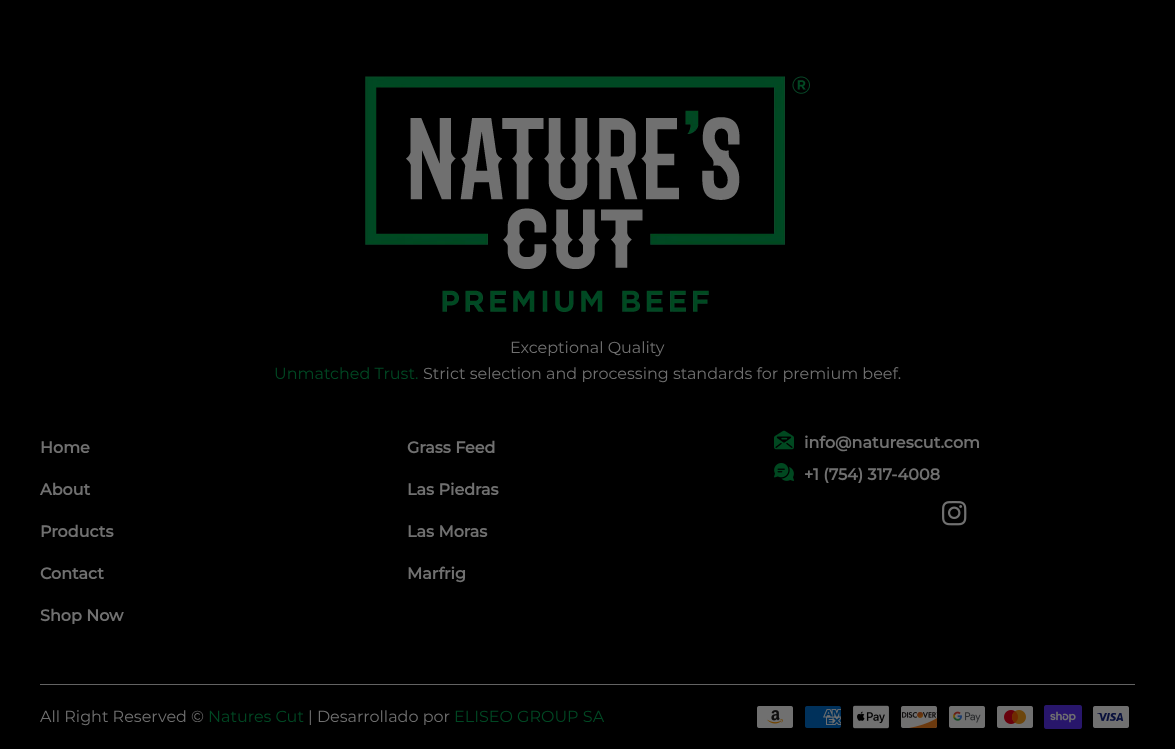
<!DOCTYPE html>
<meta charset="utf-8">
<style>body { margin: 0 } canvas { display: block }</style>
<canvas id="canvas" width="1175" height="749"></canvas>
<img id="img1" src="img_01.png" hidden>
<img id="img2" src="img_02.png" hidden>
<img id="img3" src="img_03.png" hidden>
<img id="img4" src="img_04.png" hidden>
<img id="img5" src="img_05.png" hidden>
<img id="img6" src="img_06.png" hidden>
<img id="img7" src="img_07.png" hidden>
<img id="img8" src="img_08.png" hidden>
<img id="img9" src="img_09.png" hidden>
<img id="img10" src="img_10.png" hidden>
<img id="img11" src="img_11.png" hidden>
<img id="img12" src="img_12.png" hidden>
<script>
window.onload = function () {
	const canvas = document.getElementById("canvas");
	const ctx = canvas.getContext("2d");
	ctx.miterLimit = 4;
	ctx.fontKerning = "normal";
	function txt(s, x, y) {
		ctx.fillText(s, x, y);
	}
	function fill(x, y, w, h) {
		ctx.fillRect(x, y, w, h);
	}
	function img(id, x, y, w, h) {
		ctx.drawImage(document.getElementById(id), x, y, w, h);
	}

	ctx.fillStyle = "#000000";
	fill(0, 0, 1175, 749);
	img("img1", 365, 76, 445, 236);
	img("img2", 774, 430, 20, 20);
	img("img3", 774, 463, 20, 18);
	img("img4", 942, 501, 25, 25);
	ctx.fillStyle = "#636363";
	fill(40, 684, 1095, 1);
	img("img5", 757, 706, 36, 22);
	img("img6", 805, 706, 36, 22);
	img("img7", 853, 705, 36, 24);
	img("img8", 901, 706, 37, 22);
	img("img9", 949, 706, 36, 22);
	img("img10", 997, 706, 36, 22);
	img("img11", 1044, 705, 38, 24);
	img("img12", 1093, 706, 36, 22);
	ctx.font = "16px Montserrat";
	ctx.fillStyle = "#707070";
	txt("Exceptional Quality", 510, 353);
	ctx.fillStyle = "#004823";
	txt("Unmatched Trust.", 274, 379);
	ctx.fillStyle = "#707070";
	txt("Strict selection and processing standards for premium beef.", 423, 379);
	ctx.font = "bold 16px Montserrat";
	txt("Home", 40, 453);
	txt("About", 40, 495);
	txt("Products", 40, 537);
	txt("Contact", 40, 579);
	txt("Shop Now", 40, 621);
	txt("Grass Feed", 407, 453);
	txt("Las Piedras", 407, 495);
	txt("Las Moras", 407, 537);
	txt("Marfrig", 407, 579);
	txt("info@naturescut.com", 804, 448);
	txt("+1 (754) 317-4008", 804, 480);
	ctx.font = "16px Montserrat";
	txt("All Right Reserved ©", 40, 722);
	ctx.fillStyle = "#004823";
	txt("Natures Cut", 208, 722);
	ctx.fillStyle = "#707070";
	txt("| Desarrollado por", 308, 722);
	ctx.fillStyle = "#004823";
	txt("ELISEO GROUP SA", 454, 722);
};
</script>
